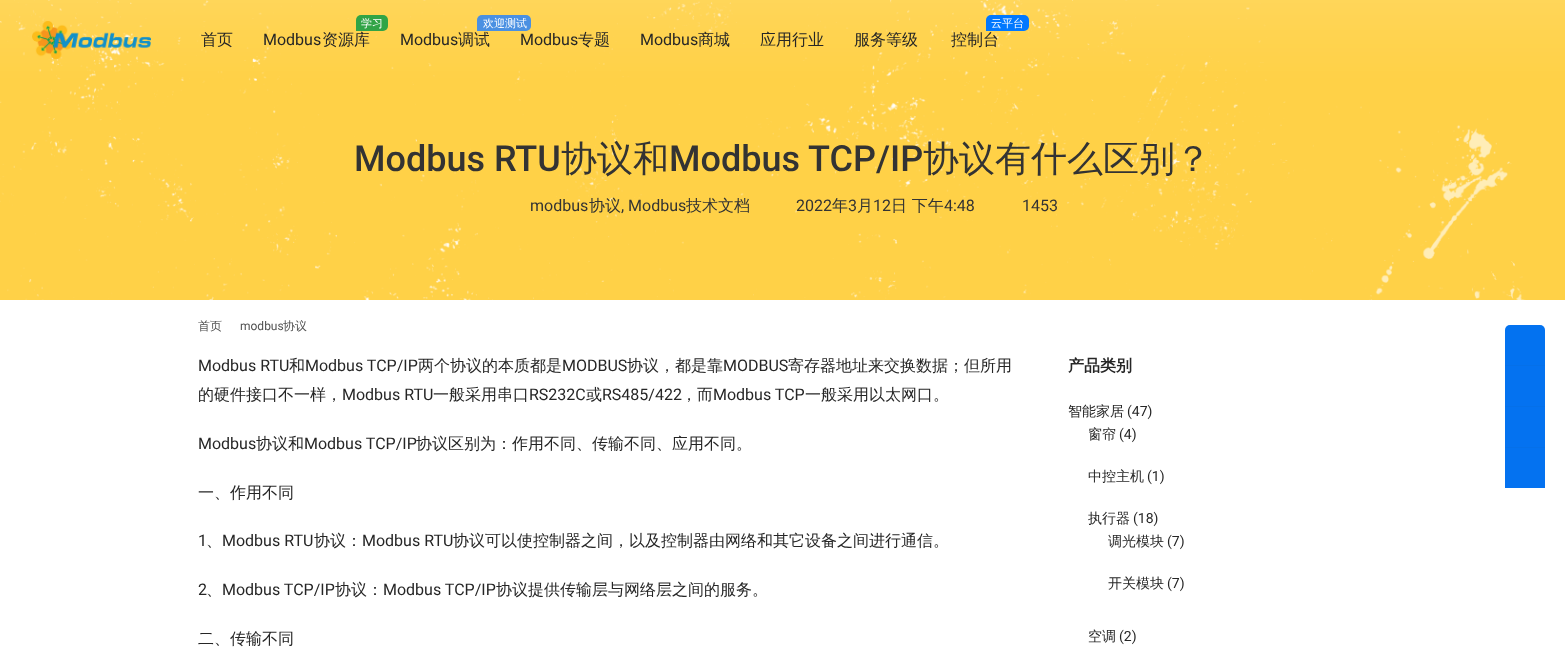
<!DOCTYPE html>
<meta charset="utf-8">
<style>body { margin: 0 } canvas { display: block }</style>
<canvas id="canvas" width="1565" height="661"></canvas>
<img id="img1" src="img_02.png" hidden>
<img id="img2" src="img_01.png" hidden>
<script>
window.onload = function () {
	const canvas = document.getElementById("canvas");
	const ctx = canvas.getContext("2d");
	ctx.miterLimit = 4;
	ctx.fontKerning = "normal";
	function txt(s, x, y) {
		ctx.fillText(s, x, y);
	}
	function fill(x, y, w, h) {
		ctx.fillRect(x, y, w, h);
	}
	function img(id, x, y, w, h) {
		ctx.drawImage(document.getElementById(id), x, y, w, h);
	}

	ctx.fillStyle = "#FFFFFF";
	fill(0, 0, 1565, 661);
	img("img1", 0, 0, 1565, 300);
	img("img2", 32, 21, 119, 38);
	ctx.fillStyle = "#31A446";
	ctx.beginPath();
	ctx.roundRect(356, 15, 32, 16, [5, 5, 5, 0]);
	ctx.fill();
	ctx.fillStyle = "#4A90E2";
	ctx.beginPath();
	ctx.roundRect(477, 15, 54, 16, [5, 5, 5, 0]);
	ctx.fill();
	ctx.fillStyle = "#0178FF";
	ctx.beginPath();
	ctx.roundRect(986, 15, 43, 16, [5, 5, 5, 0]);
	ctx.fill();
	ctx.beginPath();
	ctx.roundRect(1505, 325, 40, 40, [5, 5, 0, 0]);
	ctx.fill();
	ctx.fillStyle = "rgba(38, 38, 38, 0.07)";
	ctx.beginPath();
	ctx.roundRect(1505, 325, 40, 40, [5, 5, 0, 0]);
	ctx.fill();
	ctx.fillStyle = "#0570E9";
	fill(1505, 365, 40, 1);
	ctx.fillStyle = "#0472F0";
	fill(1505, 366, 40, 40);
	ctx.fillStyle = "#0570E9";
	fill(1505, 406, 40, 1);
	ctx.fillStyle = "#0472F0";
	fill(1505, 407, 40, 40);
	ctx.fillStyle = "#0570E9";
	fill(1505, 447, 40, 1);
	ctx.fillStyle = "#0472F0";
	fill(1505, 448, 40, 40);
	ctx.font = "500 16px WenQuanYi Zen Hei";
	ctx.fillStyle = "#262626";
	txt("首页", 201, 45);
	ctx.font = "500 11px WenQuanYi Zen Hei";
	ctx.fillStyle = "#FFFFFF";
	txt("学习", 361, 27);
	ctx.font = "16px Roboto";
	ctx.fillStyle = "#262626";
	txt("Modbus", 263, 45);
	ctx.font = "500 16px WenQuanYi Zen Hei";
	txt("资源库", 322, 45);
	ctx.font = "500 11px WenQuanYi Zen Hei";
	ctx.fillStyle = "#FFFFFF";
	txt("欢迎测试", 483, 27);
	ctx.font = "16px Roboto";
	ctx.fillStyle = "#262626";
	txt("Modbus", 400, 45);
	ctx.font = "500 16px WenQuanYi Zen Hei";
	txt("调试", 458, 45);
	ctx.font = "16px Roboto";
	txt("Modbus", 520, 45);
	ctx.font = "500 16px WenQuanYi Zen Hei";
	txt("专题", 578, 45);
	ctx.font = "16px Roboto";
	txt("Modbus", 640, 45);
	ctx.font = "500 16px WenQuanYi Zen Hei";
	txt("商城", 698, 45);
	txt("应用行业", 760, 45);
	txt("服务等级", 854, 45);
	ctx.font = "500 11px WenQuanYi Zen Hei";
	ctx.fillStyle = "#FFFFFF";
	txt("云平台", 991, 27);
	ctx.font = "500 16px WenQuanYi Zen Hei";
	ctx.fillStyle = "#262626";
	txt("控制台", 951, 45);
	ctx.font = "500 36px Roboto";
	ctx.fillStyle = "#333333";
	txt("Modbus RTU", 354, 171);
	ctx.font = "500 36px WenQuanYi Zen Hei";
	txt("协议和", 561, 171);
	ctx.font = "500 36px Roboto";
	txt("Modbus TCP/IP", 669, 171);
	ctx.font = "500 36px WenQuanYi Zen Hei";
	txt("协议有什么区别？", 923, 171);
	ctx.font = "16px Roboto";
	txt("modbus", 530, 211);
	ctx.font = "500 16px WenQuanYi Zen Hei";
	txt("协议", 589, 211);
	ctx.font = "16px Roboto";
	txt(", Modbus", 621, 211);
	ctx.font = "500 16px WenQuanYi Zen Hei";
	txt("技术文档", 686, 211);
	ctx.font = "16px Roboto";
	txt("2022", 796, 211);
	ctx.font = "500 16px WenQuanYi Zen Hei";
	txt("年", 832, 211);
	ctx.font = "16px Roboto";
	txt("3", 848, 211);
	ctx.font = "500 16px WenQuanYi Zen Hei";
	txt("月", 857, 211);
	ctx.font = "16px Roboto";
	txt("12", 873, 211);
	ctx.font = "500 16px WenQuanYi Zen Hei";
	txt("日 下午", 891, 211);
	ctx.font = "16px Roboto";
	txt("4:48", 944, 211);
	txt("1453", 1022, 211);
	ctx.font = "500 12px WenQuanYi Zen Hei";
	ctx.fillStyle = "#515151";
	txt("首页", 198, 330);
	ctx.font = "12px Roboto";
	txt("modbus", 240, 330);
	ctx.font = "500 12px WenQuanYi Zen Hei";
	txt("协议", 283, 330);
	ctx.font = "16px Roboto";
	ctx.fillStyle = "#262626";
	txt("Modbus RTU", 198, 371);
	ctx.font = "500 16px WenQuanYi Zen Hei";
	txt("和", 289, 371);
	ctx.font = "16px Roboto";
	txt("Modbus TCP/IP", 305, 371);
	ctx.font = "500 16px WenQuanYi Zen Hei";
	txt("两个协议的本质都是", 418, 371);
	ctx.font = "16px Roboto";
	txt("MODBUS", 562, 371);
	ctx.font = "500 16px WenQuanYi Zen Hei";
	txt("协议，都是靠", 627, 371);
	ctx.font = "16px Roboto";
	txt("MODBUS", 723, 371);
	ctx.font = "500 16px WenQuanYi Zen Hei";
	txt("寄存器地址来交换数据；但所用", 788, 371);
	txt("的硬件接口不一样，", 198, 400);
	ctx.font = "16px Roboto";
	txt("Modbus RTU", 342, 400);
	ctx.font = "500 16px WenQuanYi Zen Hei";
	txt("一般采用串口", 433, 400);
	ctx.font = "16px Roboto";
	txt("RS232C", 529, 400);
	ctx.font = "500 16px WenQuanYi Zen Hei";
	txt("或", 586, 400);
	ctx.font = "16px Roboto";
	txt("RS485/422", 602, 400);
	ctx.font = "500 16px WenQuanYi Zen Hei";
	txt("，而", 681, 400);
	ctx.font = "16px Roboto";
	txt("Modbus TCP", 713, 400);
	ctx.font = "500 16px WenQuanYi Zen Hei";
	txt("一般采用以太网口。", 805, 400);
	ctx.font = "16px Roboto";
	txt("Modbus", 198, 449);
	ctx.font = "500 16px WenQuanYi Zen Hei";
	txt("协议和", 256, 449);
	ctx.font = "16px Roboto";
	txt("Modbus TCP/IP", 304, 449);
	ctx.font = "500 16px WenQuanYi Zen Hei";
	txt("协议区别为：作用不同、传输不同、应用不同。", 416, 449);
	txt("一、作用不同", 198, 498);
	ctx.font = "16px Roboto";
	txt("1", 198, 546);
	ctx.font = "500 16px WenQuanYi Zen Hei";
	txt("、", 206, 546);
	ctx.font = "16px Roboto";
	txt("Modbus RTU", 222, 546);
	ctx.font = "500 16px WenQuanYi Zen Hei";
	txt("协议：", 314, 546);
	ctx.font = "16px Roboto";
	txt("Modbus RTU", 362, 546);
	ctx.font = "500 16px WenQuanYi Zen Hei";
	txt("协议可以使控制器之间，以及控制器由网络和其它设备之间进行通信。", 453, 546);
	ctx.font = "16px Roboto";
	txt("2", 198, 595);
	ctx.font = "500 16px WenQuanYi Zen Hei";
	txt("、", 206, 595);
	ctx.font = "16px Roboto";
	txt("Modbus TCP/IP", 222, 595);
	ctx.font = "500 16px WenQuanYi Zen Hei";
	txt("协议：", 335, 595);
	ctx.font = "16px Roboto";
	txt("Modbus TCP/IP", 383, 595);
	ctx.font = "500 16px WenQuanYi Zen Hei";
	txt("协议提供传输层与网络层之间的服务。", 496, 595);
	txt("二、传输不同", 198, 644);
	ctx.font = "bold 16px WenQuanYi Zen Hei";
	txt("产品类别", 1068, 371);
	ctx.font = "500 14px WenQuanYi Zen Hei";
	txt("智能家居", 1068, 416);
	ctx.font = "14px Roboto";
	txt("(47)", 1127, 416);
	ctx.font = "500 14px WenQuanYi Zen Hei";
	txt("窗帘", 1088, 439);
	ctx.font = "14px Roboto";
	txt("(4)", 1119, 439);
	ctx.font = "500 14px WenQuanYi Zen Hei";
	txt("中控主机", 1088, 481);
	ctx.font = "14px Roboto";
	txt("(1)", 1147, 481);
	ctx.font = "500 14px WenQuanYi Zen Hei";
	txt("执行器", 1088, 523);
	ctx.font = "14px Roboto";
	txt("(18)", 1133, 523);
	ctx.font = "500 14px WenQuanYi Zen Hei";
	txt("调光模块", 1108, 546);
	ctx.font = "14px Roboto";
	txt("(7)", 1167, 546);
	ctx.font = "500 14px WenQuanYi Zen Hei";
	txt("开关模块", 1108, 588);
	ctx.font = "14px Roboto";
	txt("(7)", 1167, 588);
	ctx.font = "500 14px WenQuanYi Zen Hei";
	txt("空调", 1088, 641);
	ctx.font = "14px Roboto";
	txt("(2)", 1119, 641);
};
</script>
